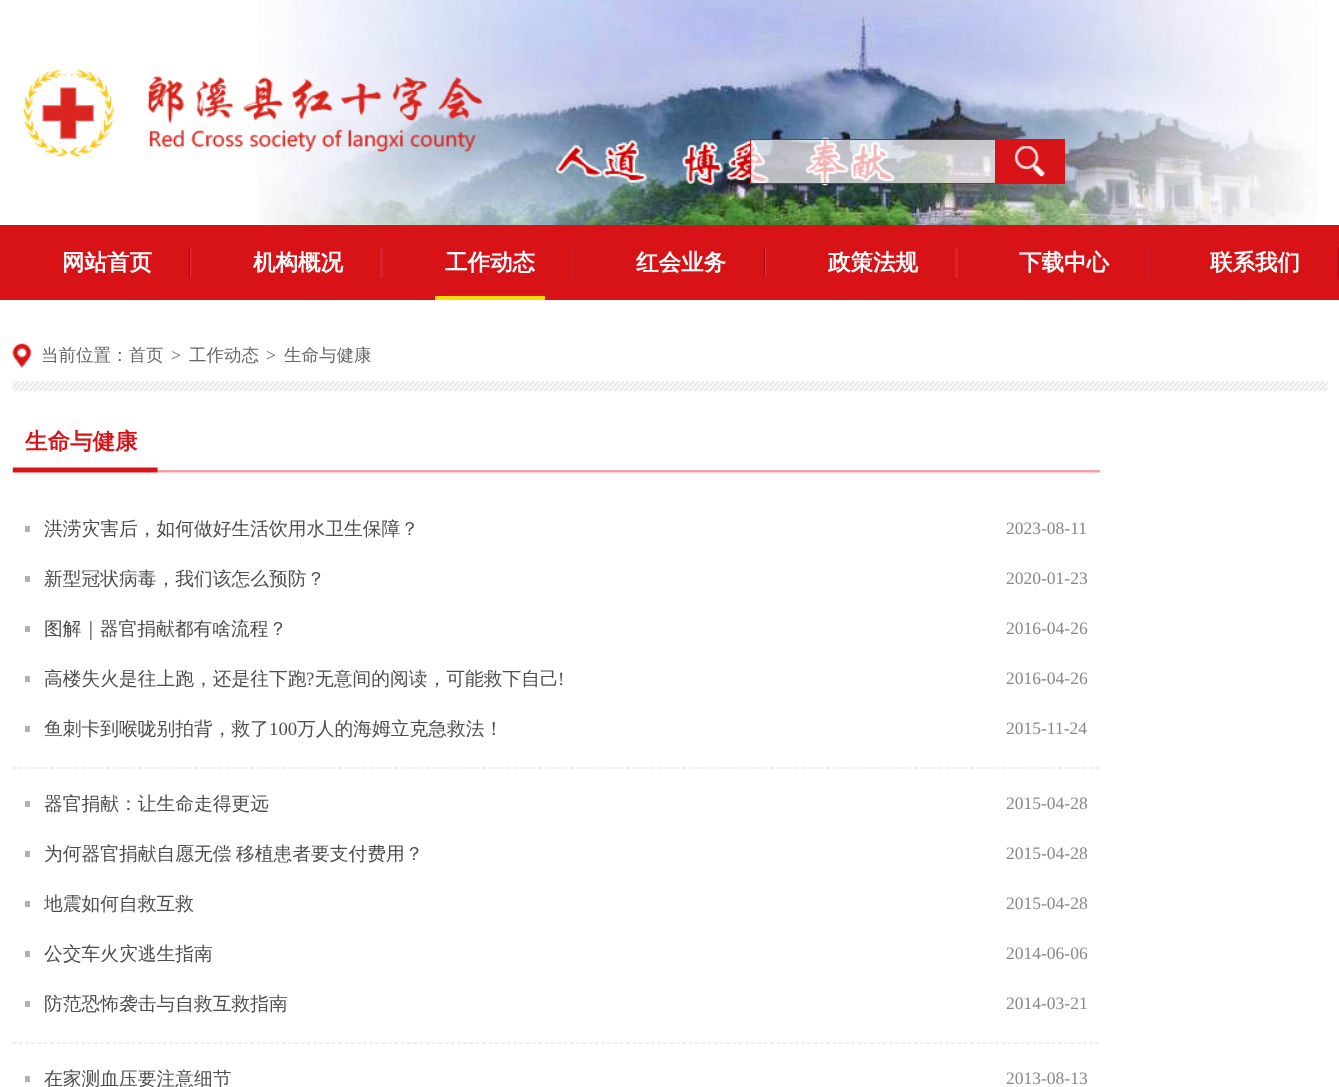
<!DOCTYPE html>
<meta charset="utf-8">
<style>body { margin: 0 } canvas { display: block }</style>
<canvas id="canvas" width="1339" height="1087"></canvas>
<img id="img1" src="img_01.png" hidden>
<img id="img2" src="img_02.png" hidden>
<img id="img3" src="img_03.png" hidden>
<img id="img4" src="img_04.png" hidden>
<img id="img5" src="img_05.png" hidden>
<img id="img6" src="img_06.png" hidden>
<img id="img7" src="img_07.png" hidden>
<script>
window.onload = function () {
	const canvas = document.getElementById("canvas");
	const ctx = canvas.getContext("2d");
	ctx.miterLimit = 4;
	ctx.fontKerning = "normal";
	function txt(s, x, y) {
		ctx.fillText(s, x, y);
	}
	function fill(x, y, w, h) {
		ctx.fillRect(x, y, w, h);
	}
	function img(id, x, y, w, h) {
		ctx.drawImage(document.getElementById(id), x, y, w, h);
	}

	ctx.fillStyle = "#FFFFFF";
	fill(0, 0, 1339, 1087);
	img("img1", 257, 0, 1061, 225);
	img("img2", 23, 69, 460, 91);
	ctx.fillStyle = "rgba(255, 255, 255, 0.7)";
	fill(751, 140, 244, 43);
	ctx.fillStyle = "#D81318";
	fill(750, 139, 245, 1);
	fill(750, 183, 245, 1);
	fill(750, 139, 1, 45);
	fill(995, 139, 70, 45);
	img("img3", 1015, 146, 30, 31);
	fill(0, 225, 1339, 75);
	img("img4", 188, 247, 4, 31);
	ctx.fillStyle = "#DC212F";
	fill(380, 247, 3, 31);
	ctx.fillStyle = "#CC1A28";
	fill(571, 247, 3, 31);
	ctx.fillStyle = "#FBDB02";
	fill(435, 296, 110, 4);
	img("img4", 763, 247, 4, 31);
	ctx.fillStyle = "#DC212F";
	fill(955, 247, 3, 31);
	ctx.fillStyle = "#CC1A28";
	fill(1146, 247, 3, 31);
	img("img5", 1337, 247, 2, 31);
	img("img6", 12, 343, 1316, 49);
	img("img7", 12, 467, 1088, 6);
	ctx.fillStyle = "#B1B1B1";
	fill(25, 526, 5, 6);
	fill(25, 576, 5, 6);
	fill(25, 626, 5, 6);
	fill(25, 676, 5, 6);
	fill(25, 726, 5, 6);
	ctx.beginPath();
	ctx.moveTo(12.5, 768);
	ctx.lineTo(1100, 768);
	ctx.strokeStyle = "#DDDDDD";
	ctx.lineWidth = 1.2;
	ctx.setLineDash([3.75, 2.51]);
	ctx.stroke();
	fill(25, 801, 5, 6);
	fill(25, 851, 5, 6);
	fill(25, 901, 5, 6);
	fill(25, 951, 5, 6);
	fill(25, 1001, 5, 6);
	ctx.beginPath();
	ctx.moveTo(12.5, 1043);
	ctx.lineTo(1100, 1043);
	ctx.stroke();
	fill(25, 1076, 5, 6);
	ctx.font = "bold 22.5px WenQuanYi Zen Hei";
	ctx.fillStyle = "#FFFFFF";
	txt("网站首页", 62, 270);
	txt("机构概况", 253, 270);
	txt("工作动态", 445, 270);
	txt("红会业务", 636, 270);
	txt("政策法规", 828, 270);
	txt("下载中心", 1019, 270);
	txt("联系我们", 1210, 270);
	ctx.font = "500 17.5px WenQuanYi Zen Hei";
	ctx.fillStyle = "#666666";
	txt("当前位置：首页", 41, 361);
	ctx.font = "17.5px Liberation Serif";
	txt(">", 171, 361);
	ctx.font = "500 17.5px WenQuanYi Zen Hei";
	txt("工作动态", 189, 361);
	ctx.font = "17.5px Liberation Serif";
	txt(">", 266, 361);
	ctx.font = "500 17.5px WenQuanYi Zen Hei";
	txt("生命与健康", 284, 361);
	ctx.font = "bold 22.5px WenQuanYi Zen Hei";
	ctx.fillStyle = "#D81318";
	txt("生命与健康", 25, 449);
	ctx.font = "500 18.75px WenQuanYi Zen Hei";
	ctx.fillStyle = "#4D4D4D";
	txt("洪涝灾害后，如何做好生活饮用水卫生保障？", 44, 535);
	ctx.font = "17.5px Liberation Serif";
	ctx.fillStyle = "#888888";
	txt("2023-08-11", 1006, 534);
	ctx.font = "500 18.75px WenQuanYi Zen Hei";
	ctx.fillStyle = "#4D4D4D";
	txt("新型冠状病毒，我们该怎么预防？", 44, 585);
	ctx.font = "17.5px Liberation Serif";
	ctx.fillStyle = "#888888";
	txt("2020-01-23", 1006, 584);
	ctx.font = "500 18.75px WenQuanYi Zen Hei";
	ctx.fillStyle = "#4D4D4D";
	txt("图解｜器官捐献都有啥流程？", 44, 635);
	ctx.font = "17.5px Liberation Serif";
	ctx.fillStyle = "#888888";
	txt("2016-04-26", 1006, 634);
	ctx.font = "500 18.75px WenQuanYi Zen Hei";
	ctx.fillStyle = "#4D4D4D";
	txt("高楼失火是往上跑，还是往下跑", 44, 685);
	ctx.font = "18.75px Liberation Serif";
	txt("?", 306, 685);
	ctx.font = "500 18.75px WenQuanYi Zen Hei";
	txt("无意间的阅读，可能救下自己", 315, 685);
	ctx.font = "18.75px Liberation Serif";
	txt("!", 558, 685);
	ctx.font = "17.5px Liberation Serif";
	ctx.fillStyle = "#888888";
	txt("2016-04-26", 1006, 684);
	ctx.font = "500 18.75px WenQuanYi Zen Hei";
	ctx.fillStyle = "#4D4D4D";
	txt("鱼刺卡到喉咙别拍背，救了", 44, 735);
	ctx.font = "18.75px Liberation Serif";
	txt("100", 269, 735);
	ctx.font = "500 18.75px WenQuanYi Zen Hei";
	txt("万人的海姆立克急救法！", 297, 735);
	ctx.font = "17.5px Liberation Serif";
	ctx.fillStyle = "#888888";
	txt("2015-11-24", 1006, 734);
	ctx.font = "500 18.75px WenQuanYi Zen Hei";
	ctx.fillStyle = "#4D4D4D";
	txt("器官捐献：让生命走得更远", 44, 810);
	ctx.font = "17.5px Liberation Serif";
	ctx.fillStyle = "#888888";
	txt("2015-04-28", 1006, 809);
	ctx.wordSpacing = "-1px";
	ctx.font = "500 18.75px WenQuanYi Zen Hei";
	ctx.fillStyle = "#4D4D4D";
	txt("为何器官捐献自愿无偿 移植患者要支付费用？", 44, 860);
	ctx.wordSpacing = "0px";
	ctx.font = "17.5px Liberation Serif";
	ctx.fillStyle = "#888888";
	txt("2015-04-28", 1006, 859);
	ctx.font = "500 18.75px WenQuanYi Zen Hei";
	ctx.fillStyle = "#4D4D4D";
	txt("地震如何自救互救", 44, 910);
	ctx.font = "17.5px Liberation Serif";
	ctx.fillStyle = "#888888";
	txt("2015-04-28", 1006, 909);
	ctx.font = "500 18.75px WenQuanYi Zen Hei";
	ctx.fillStyle = "#4D4D4D";
	txt("公交车火灾逃生指南", 44, 960);
	ctx.font = "17.5px Liberation Serif";
	ctx.fillStyle = "#888888";
	txt("2014-06-06", 1006, 959);
	ctx.font = "500 18.75px WenQuanYi Zen Hei";
	ctx.fillStyle = "#4D4D4D";
	txt("防范恐怖袭击与自救互救指南", 44, 1010);
	ctx.font = "17.5px Liberation Serif";
	ctx.fillStyle = "#888888";
	txt("2014-03-21", 1006, 1009);
	ctx.font = "500 18.75px WenQuanYi Zen Hei";
	ctx.fillStyle = "#4D4D4D";
	txt("在家测血压要注意细节", 44, 1085);
	ctx.font = "17.5px Liberation Serif";
	ctx.fillStyle = "#888888";
	txt("2013-08-13", 1006, 1084);
};
</script>
